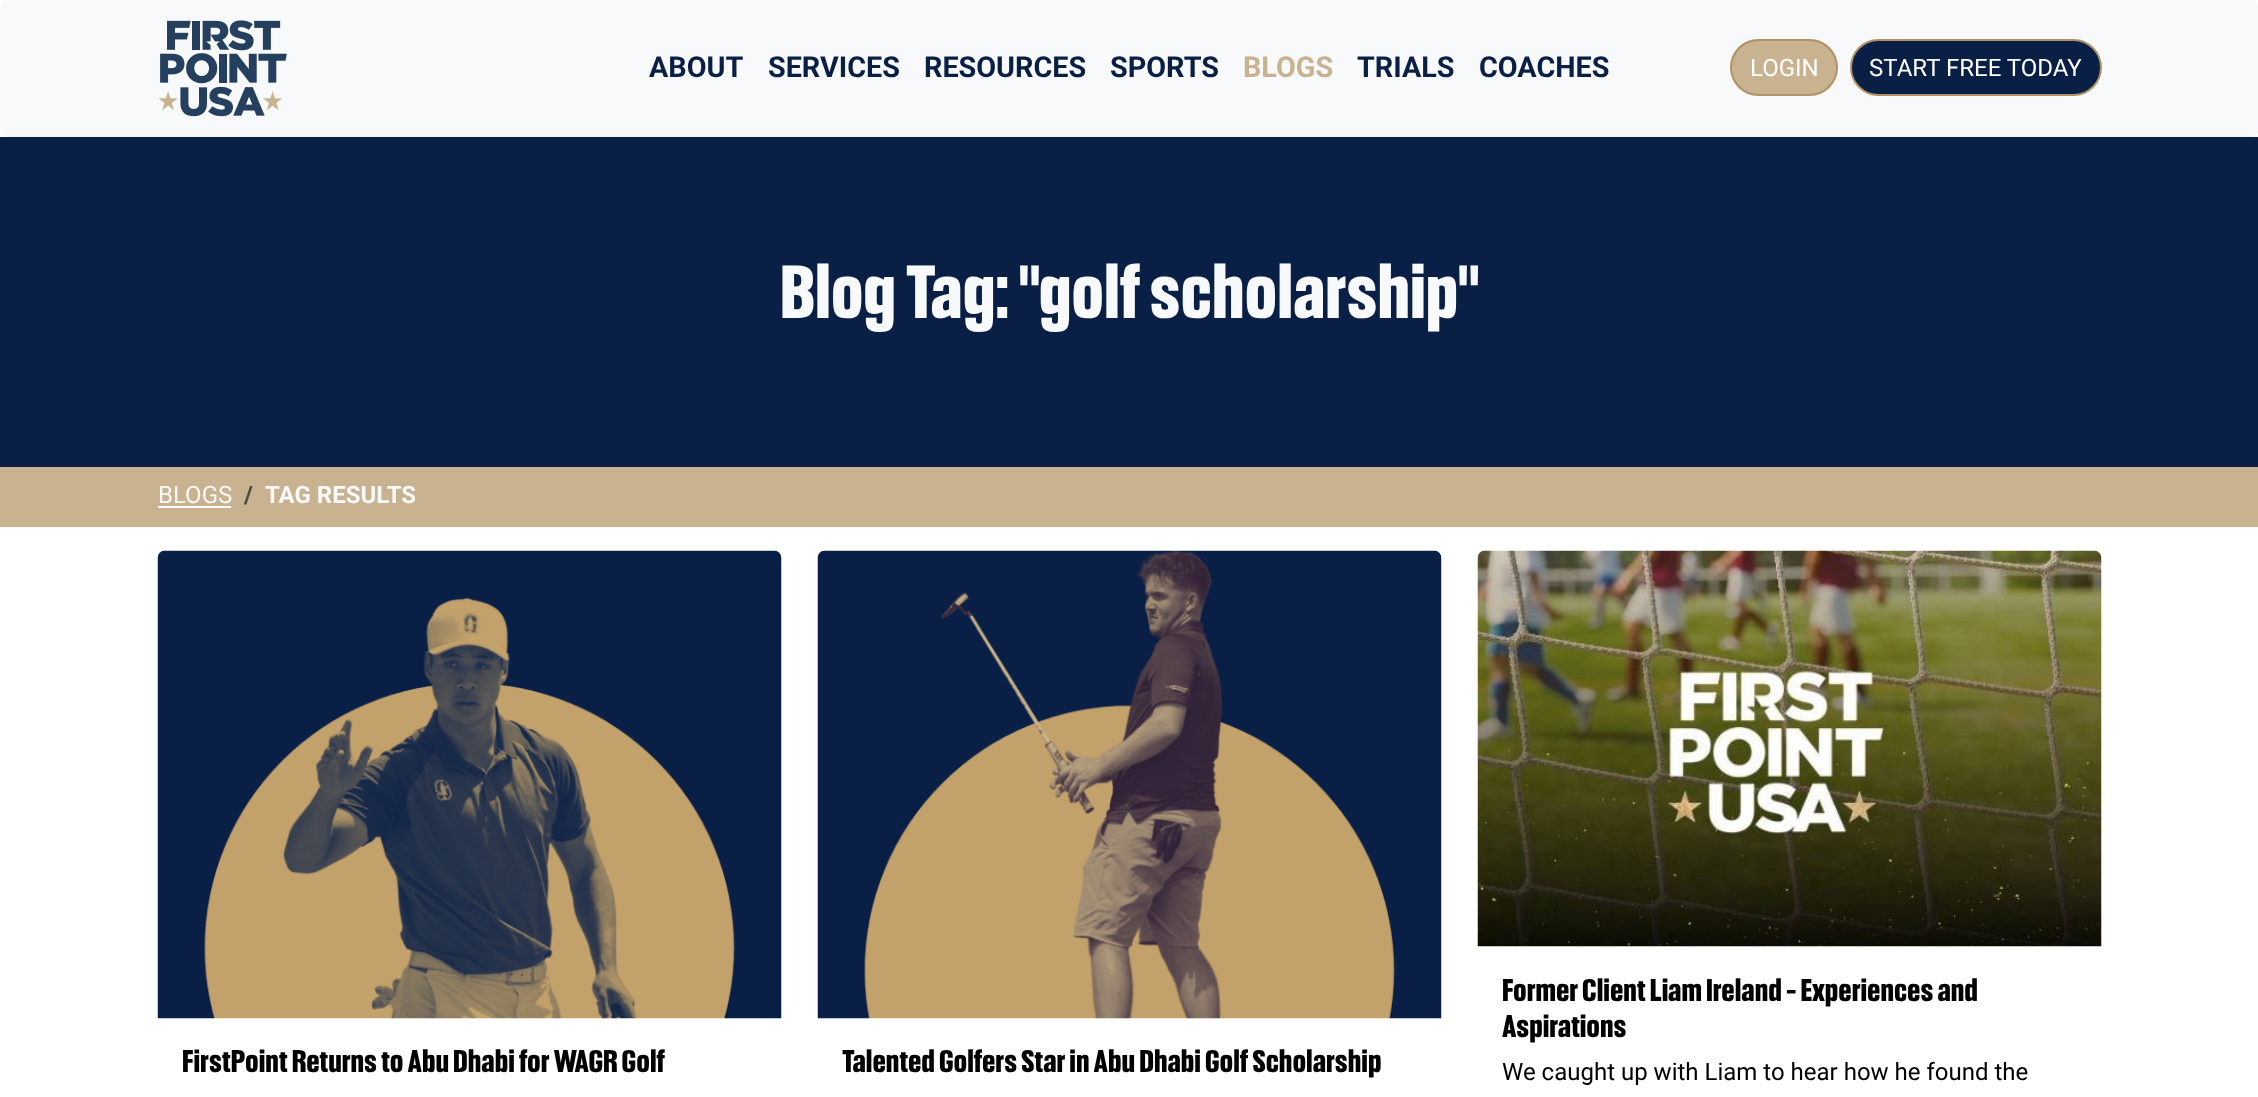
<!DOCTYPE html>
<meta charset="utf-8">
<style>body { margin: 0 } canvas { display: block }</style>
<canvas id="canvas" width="2258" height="1097"></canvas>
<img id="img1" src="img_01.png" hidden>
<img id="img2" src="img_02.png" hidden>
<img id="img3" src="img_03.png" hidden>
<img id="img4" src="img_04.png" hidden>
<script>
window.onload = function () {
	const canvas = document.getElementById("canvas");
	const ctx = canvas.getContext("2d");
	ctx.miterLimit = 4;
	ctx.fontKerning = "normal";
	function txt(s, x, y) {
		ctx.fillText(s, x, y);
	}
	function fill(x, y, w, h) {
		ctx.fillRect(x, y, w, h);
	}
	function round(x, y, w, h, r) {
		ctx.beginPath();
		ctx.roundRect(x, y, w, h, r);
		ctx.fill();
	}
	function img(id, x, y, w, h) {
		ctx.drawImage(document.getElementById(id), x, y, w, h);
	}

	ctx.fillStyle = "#FFFFFF";
	fill(0, 0, 2258, 1097);
	ctx.fillStyle = "#F8F9FA";
	round(0, 0, 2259, 137, 9);
	img("img1", 158, 20, 129, 97);
	ctx.fillStyle = "#C8B28F";
	ctx.beginPath();
	ctx.roundRect(1731, 40, 106, 55, 27.5);
	ctx.fill();
	ctx.strokeStyle = "#B09364";
	ctx.lineWidth = 2;
	ctx.stroke();
	ctx.fillStyle = "#091F46";
	ctx.beginPath();
	ctx.roundRect(1851, 40, 250, 55, 27.5);
	ctx.fill();
	ctx.stroke();
	fill(0, 137, 2258, 330);
	ctx.fillStyle = "#C8B28F";
	fill(0, 467, 2258, 60);
	ctx.fillStyle = "#F8F9FA";
	fill(158, 506, 73, 2);
	img("img2", 157, 550, 625, 469);
	img("img3", 817, 550, 625, 469);
	img("img4", 1477, 550, 625, 397);
	ctx.font = "bold 28.75px Roboto";
	ctx.fillStyle = "#091F46";
	txt("ABOUT", 649, 77);
	txt("SERVICES", 768, 77);
	txt("RESOURCES", 924, 77);
	txt("SPORTS", 1110, 77);
	ctx.fillStyle = "#C8B28F";
	txt("BLOGS", 1243, 77);
	ctx.fillStyle = "#091F46";
	txt("TRIALS", 1357, 77);
	txt("COACHES", 1479, 77);
	ctx.font = "24px Roboto";
	ctx.fillStyle = "#FFFFFF";
	txt("LOGIN", 1750, 76);
	txt("START FREE TODAY", 1869, 76);
	ctx.font = "bold 72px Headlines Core";
	ctx.fillStyle = "#F8F9FA";
	txt("Blog Tag: \"golf scholarship\"", 780, 318);
	ctx.font = "24px Roboto";
	txt("BLOGS", 158, 503);
	ctx.font = "bold 24px Roboto";
	ctx.fillStyle = "#4B4843";
	txt("/", 244, 503);
	ctx.fillStyle = "#F8F9FA";
	txt("TAG RESULTS", 265, 503);
	ctx.font = "bold 30px Headlines Core";
	ctx.fillStyle = "#000000";
	txt("FirstPoint Returns to Abu Dhabi for WAGR Golf", 182, 1072);
	txt("Talented Golfers Star in Abu Dhabi Golf Scholarship", 842, 1072);
	txt("Former Client Liam Ireland - Experiences and", 1502, 1001);
	txt("Aspirations", 1502, 1037);
	ctx.font = "24px Roboto";
	txt("We caught up with Liam to hear how he found the", 1502, 1080);
};
</script>
